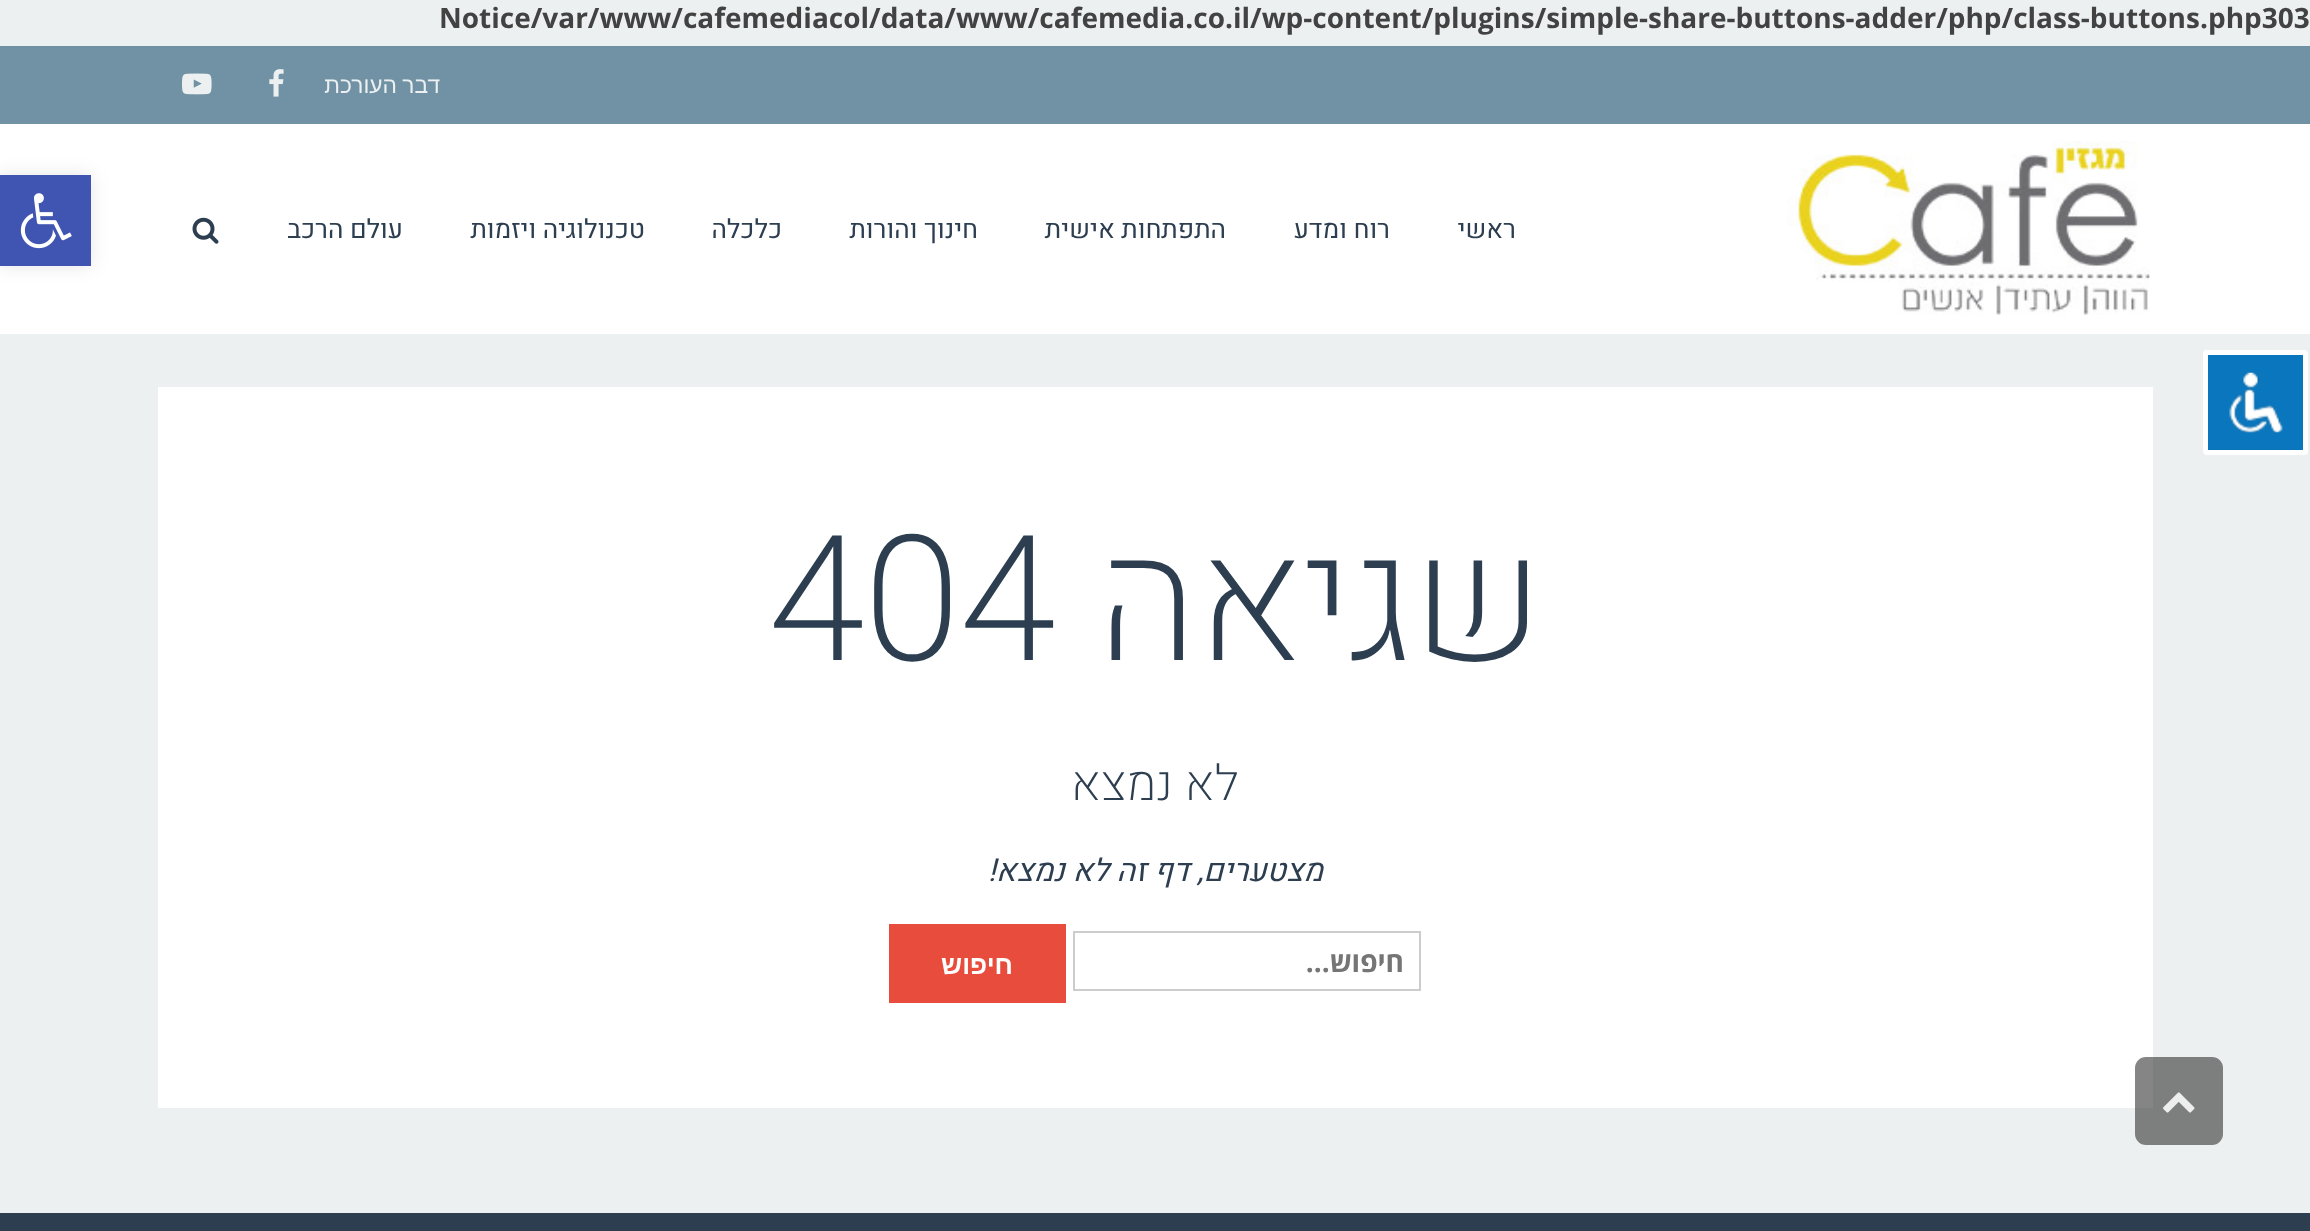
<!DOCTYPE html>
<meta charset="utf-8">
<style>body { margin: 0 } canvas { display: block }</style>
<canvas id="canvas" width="2310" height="1231"></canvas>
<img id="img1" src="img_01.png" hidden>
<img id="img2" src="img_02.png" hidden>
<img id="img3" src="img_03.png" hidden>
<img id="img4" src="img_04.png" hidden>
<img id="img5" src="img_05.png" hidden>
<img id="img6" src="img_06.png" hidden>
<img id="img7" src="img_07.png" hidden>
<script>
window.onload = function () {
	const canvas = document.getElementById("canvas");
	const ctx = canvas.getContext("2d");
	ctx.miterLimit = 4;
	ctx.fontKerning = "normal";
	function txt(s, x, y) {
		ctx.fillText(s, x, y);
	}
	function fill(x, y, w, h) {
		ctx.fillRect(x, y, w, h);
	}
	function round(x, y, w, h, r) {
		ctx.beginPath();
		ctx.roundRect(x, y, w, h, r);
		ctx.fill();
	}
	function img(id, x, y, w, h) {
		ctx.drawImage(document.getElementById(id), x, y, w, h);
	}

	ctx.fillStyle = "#ECF0F1";
	fill(0, 0, 2310, 1231);
	ctx.fillStyle = "#FFFFFF";
	fill(0, 124, 2310, 210);
	ctx.fillStyle = "rgba(0, 0, 0, 0.1)";
	ctx.filter = "blur(9px)";
	ctx.beginPath();
	ctx.rect(0, 175, 91, 91);
	ctx.fill();
	ctx.filter = "none";
	ctx.fillStyle = "#4054B2";
	fill(0, 175, 91, 91);
	img("img1", 20, 193, 52, 56);
	ctx.fillStyle = "#7092A4";
	fill(0, 46, 2310, 78);
	img("img2", 182, 73, 30, 22);
	img("img3", 269, 69, 15, 28);
	img("img4", 192, 217, 27, 27);
	img("img5", 1787, 141, 363, 174);
	ctx.fillStyle = "#FFFFFF";
	fill(158, 387, 1995, 721);
	ctx.fillStyle = "#E74C3C";
	fill(889, 924, 177, 79);
	ctx.strokeStyle = "#CCCCCC";
	ctx.lineWidth = 2;
	ctx.strokeRect(1074, 932, 346, 58);
	ctx.fillStyle = "#2C3E50";
	fill(0, 1213, 2310, 18);
	ctx.fillStyle = "rgba(51, 51, 51, 0.6)";
	round(2135, 1057, 88, 88, 11);
	img("img6", 2163, 1092, 32, 21);
	ctx.fillStyle = "#0A76BE";
	ctx.beginPath();
	ctx.roundRect(2205.5, 352.5, 100, 100, 1.5);
	ctx.fill();
	ctx.strokeStyle = "#FFFFFF";
	ctx.lineWidth = 5;
	ctx.stroke();
	img("img7", 2229, 372, 54, 61);
	ctx.font = "bold 28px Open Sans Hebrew";
	ctx.fillStyle = "#424242";
	txt("Notice/var/www/cafemediacol/data/www/cafemedia.co.il/wp-content/plugins/simple-share-buttons-adder/php/class-buttons.php303", 439, 28);
	ctx.wordSpacing = "-1px";
	ctx.direction = "rtl";
	ctx.font = "22.75px Liberation Sans";
	ctx.fillStyle = "#ECF0F1";
	txt("דבר העורכת", 440, 93);
	ctx.wordSpacing = "0px";
	ctx.font = "26.25px Heebo";
	ctx.fillStyle = "#2C3E50";
	txt("עולם הרכב", 403, 238);
	txt("טכנולוגיה ויזמות", 645, 238);
	txt("כלכלה", 782, 238);
	txt("חינוך והורות", 978, 238);
	txt("התפתחות אישית", 1226, 238);
	txt("רוח ומדע", 1390, 238);
	txt("ראשי", 1516, 238);
	ctx.letterSpacing = "-1px";
	ctx.direction = "ltr";
	ctx.font = "200 175px Heebo";
	txt("404", 768, 660);
	ctx.direction = "rtl";
	txt("שגיאה", 1542, 660);
	ctx.letterSpacing = "0px";
	ctx.font = "200 49px Heebo";
	txt("לא נמצא", 1239, 800);
	ctx.font = "italic 31.5px Heebo";
	txt("מצטערים, דף זה לא נמצא!", 1323, 881);
	ctx.font = "bold 26.25px Liberation Sans";
	ctx.fillStyle = "#FFFFFF";
	txt("חיפוש", 1013, 974);
	ctx.font = "bold 28px Open Sans Hebrew";
	ctx.fillStyle = "#757575";
	txt("חיפוש...", 1404, 972);
};
</script>
